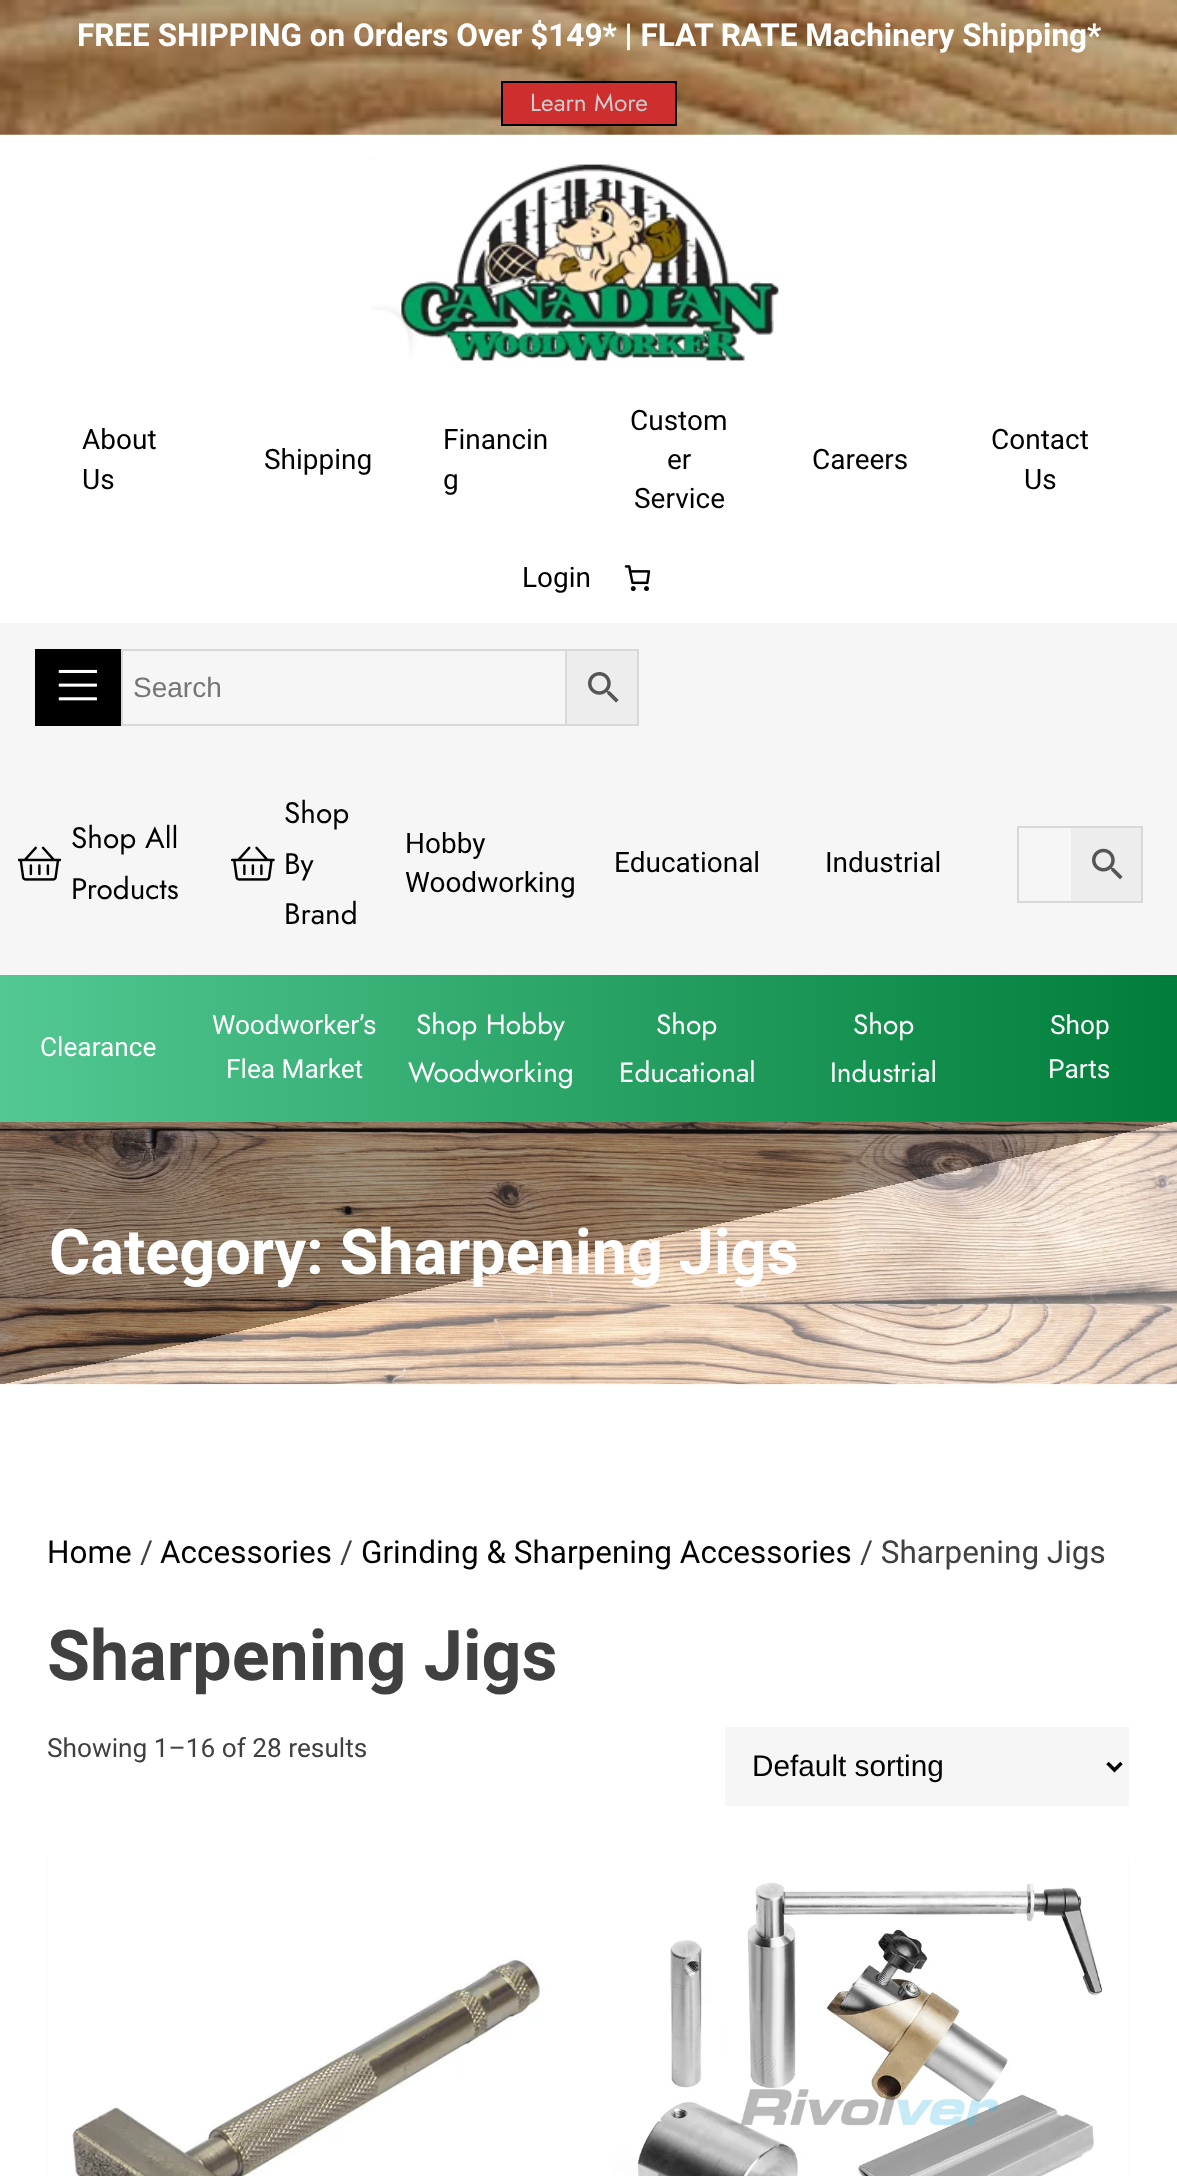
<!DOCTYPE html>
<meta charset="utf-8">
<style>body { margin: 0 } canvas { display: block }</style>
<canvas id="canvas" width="1177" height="2176"></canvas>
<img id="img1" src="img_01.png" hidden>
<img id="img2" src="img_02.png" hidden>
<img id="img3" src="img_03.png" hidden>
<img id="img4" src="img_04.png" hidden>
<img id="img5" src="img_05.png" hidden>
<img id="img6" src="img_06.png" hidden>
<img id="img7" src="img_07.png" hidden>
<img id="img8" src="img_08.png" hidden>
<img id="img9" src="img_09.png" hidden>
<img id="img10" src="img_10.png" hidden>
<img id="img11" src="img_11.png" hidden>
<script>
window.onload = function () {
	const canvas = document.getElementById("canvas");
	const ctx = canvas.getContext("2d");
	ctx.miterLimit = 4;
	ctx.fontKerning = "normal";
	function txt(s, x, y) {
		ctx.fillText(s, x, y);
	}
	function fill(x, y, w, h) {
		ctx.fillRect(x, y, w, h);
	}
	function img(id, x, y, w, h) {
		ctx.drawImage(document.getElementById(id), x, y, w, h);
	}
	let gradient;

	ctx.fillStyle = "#FFFFFF";
	fill(0, 0, 1177, 2176);
	img("img1", 0, 0, 1177, 135);
	ctx.fillStyle = "#CF2E2E";
	ctx.beginPath();
	ctx.rect(502, 82, 174, 43);
	ctx.fill();
	ctx.strokeStyle = "#000000";
	ctx.lineWidth = 2;
	ctx.stroke();
	img("img2", 371, 157, 408, 204);
	img("img3", 624, 565, 27, 27);
	ctx.fillStyle = "#F6F6F6";
	fill(0, 623, 1177, 352);
	ctx.fillStyle = "#000000";
	fill(35, 649, 86, 77);
	img("img4", 58, 669, 39, 32);
	ctx.fillStyle = "#EDEDED";
	ctx.beginPath();
	ctx.rect(566, 650, 72, 75);
	ctx.fill();
	ctx.strokeStyle = "#D8D8D8";
	ctx.stroke();
	ctx.strokeRect(122, 650, 444, 75);
	img("img5", 588, 672, 31, 31);
	img("img6", 18, 846, 43, 35);
	img("img7", 231, 846, 44, 35);
	ctx.beginPath();
	ctx.rect(1070, 827, 72, 75);
	ctx.fill();
	ctx.stroke();
	ctx.fillStyle = "#F8F8F8";
	fill(1069, 828, 2, 73);
	img("img8", 1092, 848, 31, 32);
	ctx.save();
	ctx.beginPath();
	ctx.rect(1017, 826, 54, 77);
	ctx.clip();
	ctx.strokeRect(1018, 827, 82, 75);
	ctx.restore();
	gradient = ctx.createLinearGradient(0, 1048, 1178, 1048);
	gradient.addColorStop(0, "#53C893");
	gradient.addColorStop(1, "#007E39");
	ctx.fillStyle = gradient;
	fill(0, 975, 1177, 147);
	img("img9", 0, 1121, 1177, 264);
	ctx.fillStyle = "#F6F6F6";
	fill(725, 1727, 404, 79);
	ctx.beginPath();
	ctx.moveTo(1107.5, 1763);
	ctx.lineTo(1114.5, 1770);
	ctx.lineTo(1121.5, 1763);
	ctx.strokeStyle = "#000000";
	ctx.lineWidth = 3.5;
	ctx.stroke();
	fill(47, 1859, 1, 317);
	img("img10", 47, 1859, 518, 317);
	fill(1128, 1859, 1, 317);
	img("img11", 609, 1859, 520, 317);
	ctx.font = "bold 31.5px Roboto";
	ctx.fillStyle = "#FFFFFF";
	txt("FREE SHIPPING on Orders Over $149* | FLAT RATE Machinery Shipping*", 77, 46);
	ctx.font = "24.5px Jost";
	ctx.fillStyle = "#CCCCCC";
	txt("Learn More", 530, 111);
	ctx.font = "28px Roboto";
	ctx.fillStyle = "#000000";
	txt("About", 82, 449);
	txt("Us", 82, 489);
	txt("Shipping", 264, 469);
	txt("Financin", 443, 449);
	txt("g", 443, 489);
	txt("Custom", 630, 430);
	txt("er", 667, 469);
	txt("Service", 634, 508);
	txt("Careers", 812, 469);
	txt("Contact", 991, 449);
	txt("Us", 1024, 489);
	txt("Login", 522, 587);
	ctx.font = "28px Liberation Sans";
	ctx.fillStyle = "#757575";
	txt("Search", 133, 697);
	ctx.font = "29.75px Jost";
	ctx.fillStyle = "#000000";
	txt("Shop All", 71, 848);
	txt("Products", 71, 899);
	txt("Shop", 284, 823);
	txt("By", 284, 874);
	txt("Brand", 284, 924);
	ctx.font = "28px Roboto";
	txt("Hobby", 405, 853);
	txt("Woodworking", 405, 892);
	txt("Educational", 614, 872);
	txt("Industrial", 825, 872);
	ctx.font = "26.25px Roboto";
	ctx.fillStyle = "#FFFFFF";
	txt("Clearance", 40, 1056);
	txt("Woodworker’s", 212, 1034);
	txt("Flea Market", 226, 1078);
	ctx.font = "28px Jost";
	txt("Shop Hobby", 416, 1034);
	txt("Woodworking", 408, 1082);
	txt("Shop", 656, 1034);
	txt("Educational", 619, 1082);
	txt("Shop", 853, 1034);
	txt("Industrial", 830, 1082);
	ctx.font = "26.25px Roboto";
	txt("Shop", 1050, 1034);
	txt("Parts", 1048, 1078);
	ctx.font = "bold 63px Roboto";
	txt("Category: Sharpening Jigs", 49, 1274);
	ctx.font = "31.5px Roboto";
	ctx.fillStyle = "#000000";
	txt("Home", 47, 1563);
	ctx.fillStyle = "#404040";
	txt("/", 140, 1563);
	ctx.fillStyle = "#000000";
	txt("Accessories", 160, 1563);
	ctx.fillStyle = "#404040";
	txt("/", 340, 1563);
	ctx.fillStyle = "#000000";
	txt("Grinding & Sharpening Accessories", 361, 1563);
	ctx.fillStyle = "#404040";
	txt("/ Sharpening Jigs", 860, 1563);
	ctx.font = "bold 70px Roboto";
	txt("Sharpening Jigs", 47, 1680);
	ctx.font = "26.25px Roboto";
	txt("Showing 1–16 of 28 results", 47, 1757);
	ctx.font = "29.75px Liberation Sans";
	ctx.fillStyle = "#000000";
	txt("Default sorting", 752, 1776);
};
</script>
